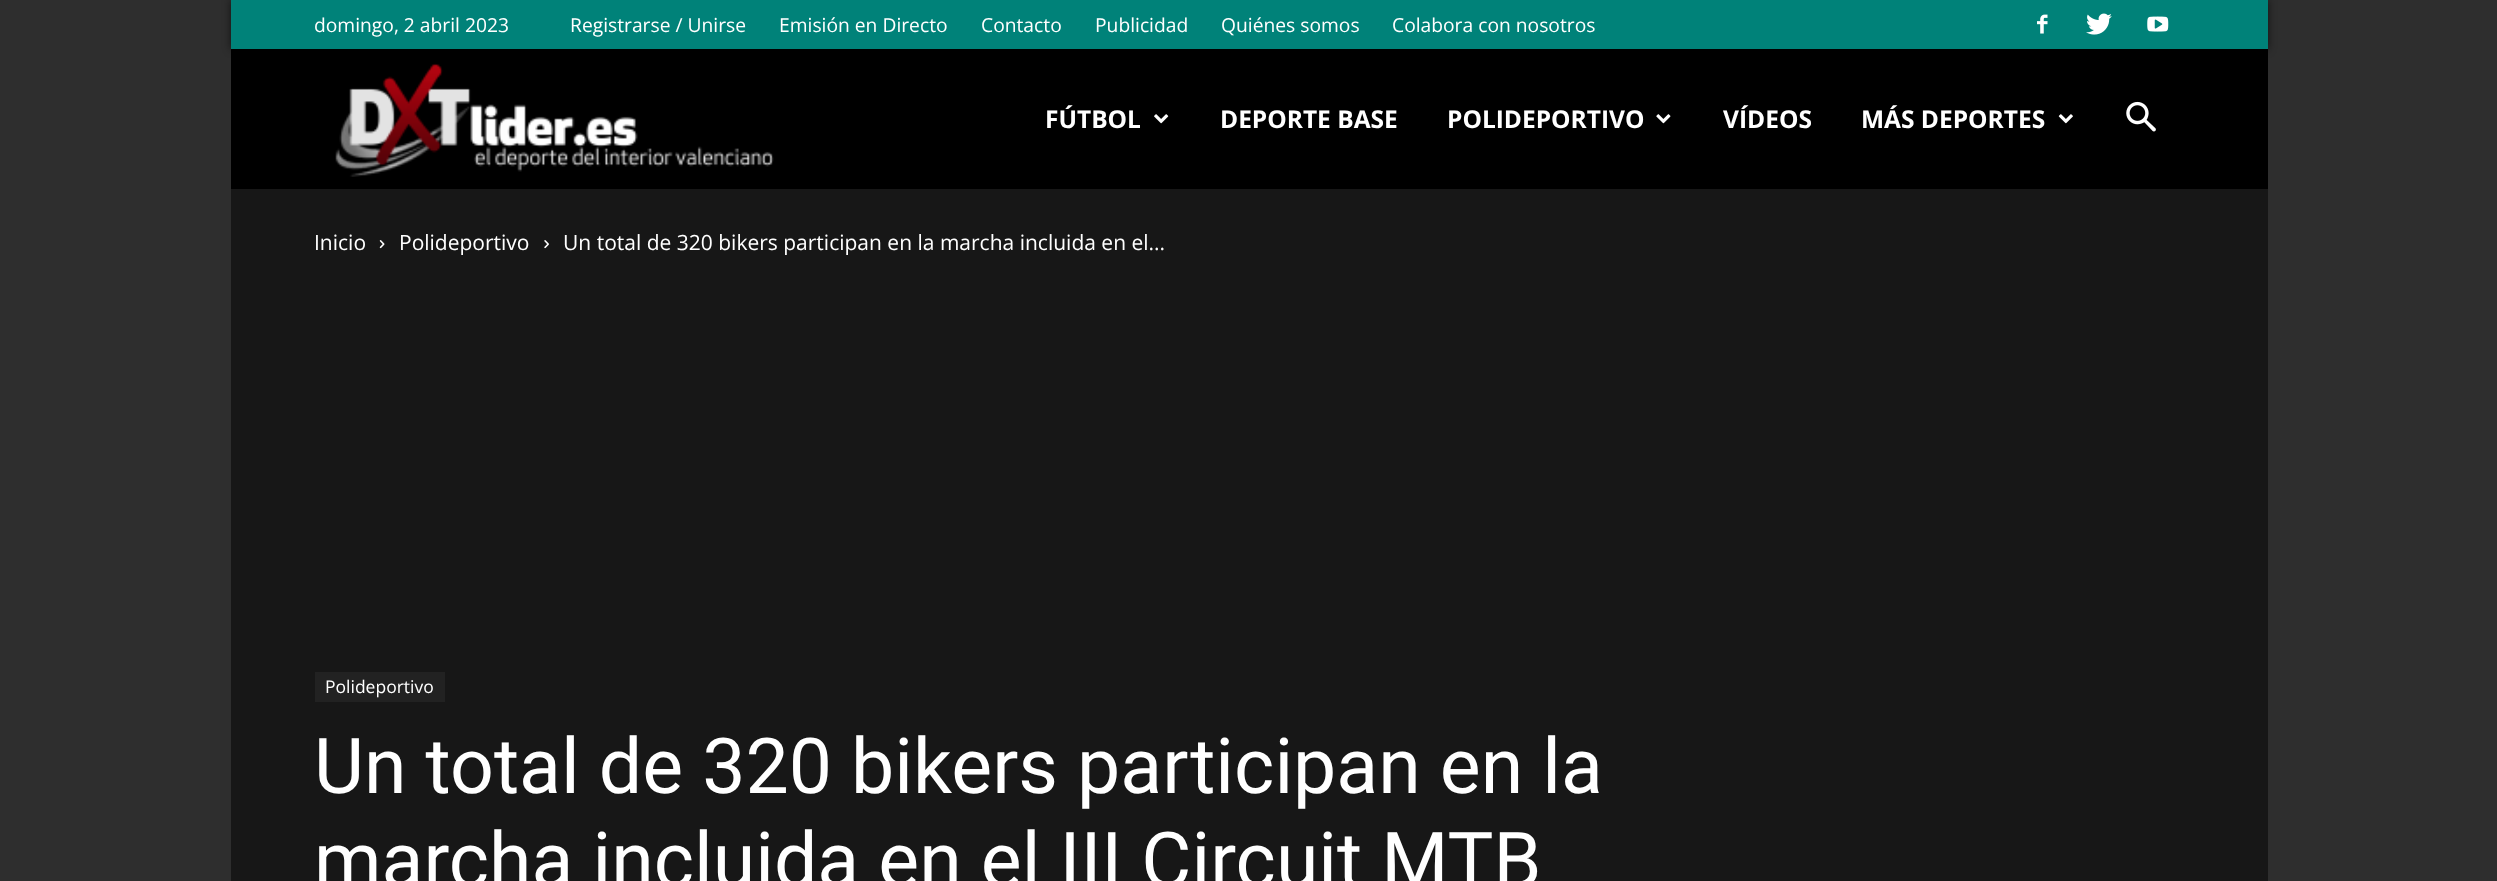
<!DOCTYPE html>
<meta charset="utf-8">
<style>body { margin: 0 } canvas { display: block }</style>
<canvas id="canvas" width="2497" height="881"></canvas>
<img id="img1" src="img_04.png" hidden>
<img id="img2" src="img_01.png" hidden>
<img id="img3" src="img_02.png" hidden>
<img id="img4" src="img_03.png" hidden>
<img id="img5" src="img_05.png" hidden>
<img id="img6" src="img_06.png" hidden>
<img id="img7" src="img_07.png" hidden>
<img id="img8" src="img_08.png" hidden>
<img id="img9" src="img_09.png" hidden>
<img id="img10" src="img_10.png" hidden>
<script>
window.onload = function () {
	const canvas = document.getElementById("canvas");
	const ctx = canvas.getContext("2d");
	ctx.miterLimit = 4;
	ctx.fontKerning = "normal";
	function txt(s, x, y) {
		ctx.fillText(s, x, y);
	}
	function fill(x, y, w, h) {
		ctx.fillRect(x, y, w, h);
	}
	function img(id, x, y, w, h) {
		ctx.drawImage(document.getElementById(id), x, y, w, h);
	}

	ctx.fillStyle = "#2E2E2E";
	fill(0, 0, 2497, 881);
	ctx.fillStyle = "#000000";
	fill(231, 49, 2037, 140);
	img("img1", 335, 63, 439, 114);
	ctx.fillStyle = "rgba(0, 0, 0, 0.6)";
	ctx.filter = "blur(4.5px)";
	ctx.beginPath();
	ctx.rect(231, 0, 2037, 49);
	ctx.fill();
	ctx.filter = "none";
	ctx.fillStyle = "#008279";
	fill(231, 0, 2037, 49);
	img("img2", 2037, 14, 11, 20);
	img("img3", 2086, 13, 26, 22);
	img("img4", 2147, 16, 22, 16);
	img("img5", 1154, 114, 15, 10);
	img("img6", 1656, 114, 15, 10);
	img("img7", 2058, 114, 15, 10);
	img("img8", 2126, 101, 30, 31);
	ctx.fillStyle = "#171717";
	fill(231, 189, 2037, 692);
	img("img9", 379, 240, 6, 9);
	img("img10", 544, 240, 5, 9);
	ctx.fillStyle = "#222222";
	fill(315, 672, 130, 30);
	ctx.font = "19.25px Open Sans";
	ctx.fillStyle = "#FFFFFF";
	txt("domingo, 2 abril 2023", 314, 32);
	txt("Registrarse / Unirse", 570, 32);
	txt("Emisión en Directo", 779, 32);
	txt("Contacto", 981, 32);
	txt("Publicidad", 1095, 32);
	txt("Quiénes somos", 1221, 32);
	txt("Colabora con nosotros", 1392, 32);
	ctx.font = "bold 24.5px Open Sans";
	txt("FÚTBOL", 1045, 128);
	txt("DEPORTE BASE", 1220, 128);
	txt("POLIDEPORTIVO", 1447, 128);
	txt("VÍDEOS", 1723, 128);
	txt("MÁS DEPORTES", 1861, 128);
	ctx.font = "21px Open Sans";
	txt("Inicio", 314, 250);
	txt("Polideportivo", 399, 250);
	txt("Un total de 320 bikers participan en la marcha incluida en el...", 563, 250);
	ctx.font = "17.5px Open Sans";
	txt("Polideportivo", 325, 693);
	ctx.font = "77px Roboto";
	txt("Un total de 320 bikers participan en la", 314, 793);
	txt("marcha incluida en el III Circuit MTB", 314, 887);
};
</script>
